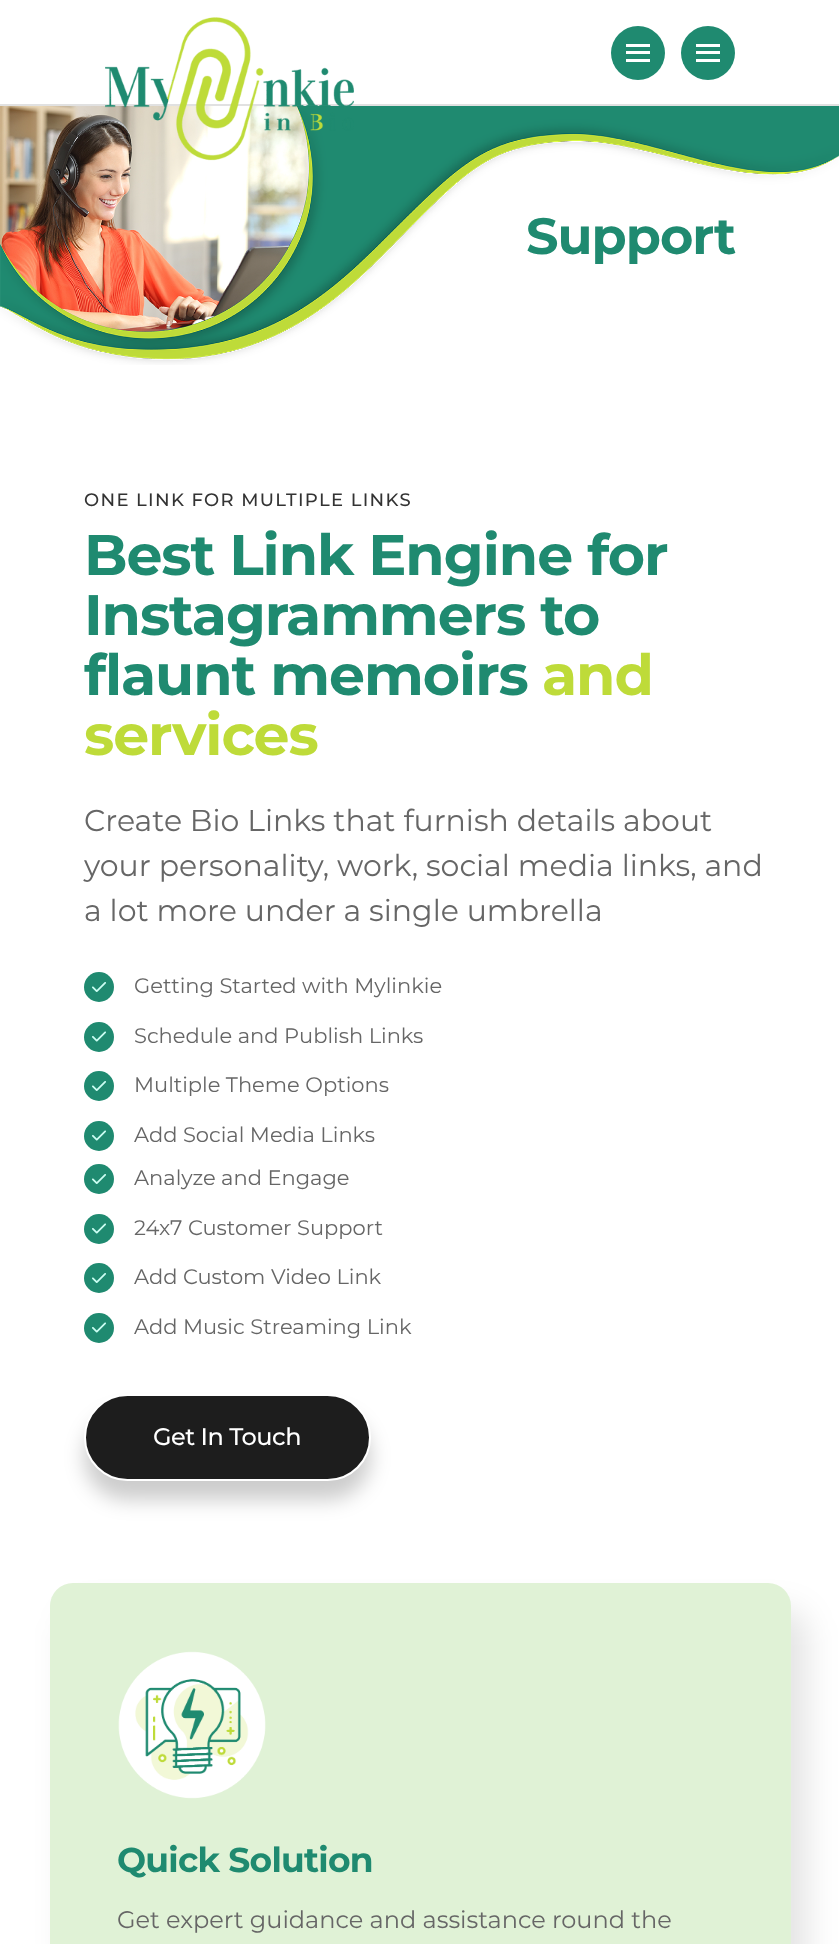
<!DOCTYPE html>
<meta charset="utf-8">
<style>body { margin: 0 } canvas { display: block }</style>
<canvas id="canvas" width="839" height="1944"></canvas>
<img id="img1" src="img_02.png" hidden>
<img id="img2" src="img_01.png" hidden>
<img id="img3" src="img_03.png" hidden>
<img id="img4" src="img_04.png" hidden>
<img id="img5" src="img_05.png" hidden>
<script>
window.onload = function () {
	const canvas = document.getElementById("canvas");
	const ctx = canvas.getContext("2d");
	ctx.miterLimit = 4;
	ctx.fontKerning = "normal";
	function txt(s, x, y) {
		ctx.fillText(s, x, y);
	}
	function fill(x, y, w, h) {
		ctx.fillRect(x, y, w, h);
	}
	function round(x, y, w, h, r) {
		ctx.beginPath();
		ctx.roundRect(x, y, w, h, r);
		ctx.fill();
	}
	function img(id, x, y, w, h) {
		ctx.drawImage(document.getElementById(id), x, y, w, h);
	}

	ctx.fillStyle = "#FFFFFF";
	fill(0, 0, 839, 1944);
	ctx.fillStyle = "#E1E1E1";
	fill(0, 104, 839, 2);
	img("img1", 0, 106, 839, 259);
	img("img2", 105, 17, 249, 144);
	ctx.fillStyle = "#1F8A70";
	ctx.beginPath();
	ctx.arc(638, 53, 27, 0, Math.PI * 2);
	ctx.fill();
	ctx.fillStyle = "#FFFFFF";
	fill(626, 44, 24, 3);
	fill(626, 51, 24, 3);
	fill(626, 59, 24, 3);
	ctx.fillStyle = "#1F8A70";
	ctx.beginPath();
	ctx.arc(708, 53, 27, 0, Math.PI * 2);
	ctx.fill();
	ctx.fillStyle = "#FFFFFF";
	fill(696, 44, 24, 3);
	fill(696, 51, 24, 3);
	fill(696, 59, 24, 3);
	ctx.fillStyle = "#1F8A70";
	ctx.beginPath();
	ctx.arc(99, 987, 15, 0, Math.PI * 2);
	ctx.fill();
	img("img3", 92, 982, 14, 10);
	ctx.beginPath();
	ctx.arc(99, 1037, 15, 0, Math.PI * 2);
	ctx.fill();
	img("img4", 92, 1031, 14, 11);
	ctx.beginPath();
	ctx.arc(99, 1086, 15, 0, Math.PI * 2);
	ctx.fill();
	img("img3", 92, 1081, 14, 10);
	ctx.beginPath();
	ctx.arc(99, 1136, 15, 0, Math.PI * 2);
	ctx.fill();
	img("img4", 92, 1130, 14, 11);
	ctx.beginPath();
	ctx.arc(99, 1179, 15, 0, Math.PI * 2);
	ctx.fill();
	img("img3", 92, 1174, 14, 10);
	ctx.beginPath();
	ctx.arc(99, 1229, 15, 0, Math.PI * 2);
	ctx.fill();
	img("img4", 92, 1223, 14, 11);
	ctx.beginPath();
	ctx.arc(99, 1278, 15, 0, Math.PI * 2);
	ctx.fill();
	img("img3", 92, 1273, 14, 10);
	ctx.beginPath();
	ctx.arc(99, 1328, 15, 0, Math.PI * 2);
	ctx.fill();
	img("img4", 92, 1322, 14, 11);
	ctx.fillStyle = "rgba(0, 0, 0, 0.2)";
	ctx.filter = "blur(10px)";
	ctx.beginPath();
	ctx.roundRect(84, 1413, 287, 87, 43.5);
	ctx.fill();
	ctx.filter = "none";
	ctx.fillStyle = "#1D1D1D";
	ctx.beginPath();
	ctx.roundRect(85, 1395, 285, 85, 42.5);
	ctx.fill();
	ctx.strokeStyle = "#FFFFFF";
	ctx.lineWidth = 2;
	ctx.stroke();
	ctx.fillStyle = "rgba(0, 0, 0, 0.11)";
	ctx.filter = "blur(16px)";
	ctx.beginPath();
	ctx.roundRect(66, 1610, 741, 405, 23);
	ctx.fill();
	ctx.filter = "none";
	ctx.fillStyle = "#E0F2D6";
	round(50, 1583, 741, 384, 23);
	img("img5", 118, 1651, 148, 148);
	ctx.letterSpacing = "-1px";
	ctx.font = "bold 51px Montserrat";
	ctx.fillStyle = "#1F8A70";
	txt("Support", 526, 254);
	ctx.letterSpacing = "1.35px";
	ctx.font = "500 18px Montserrat";
	ctx.fillStyle = "#333333";
	txt("ONE LINK FOR MULTIPLE LINKS", 84, 506);
	ctx.letterSpacing = "-1.1px";
	ctx.font = "bold 57px Montserrat";
	ctx.fillStyle = "#1F8A70";
	txt("Best Link Engine for", 84, 575);
	txt("Instagrammers to", 84, 635);
	txt("flaunt memoirs", 84, 695);
	ctx.fillStyle = "#BEDB39";
	txt("and", 542, 695);
	txt("services", 84, 755);
	ctx.letterSpacing = "0px";
	ctx.font = "30px Montserrat";
	ctx.fillStyle = "#666666";
	txt("Create Bio Links that furnish details about", 84, 831);
	txt("your personality, work, social media links, and", 84, 876);
	txt("a lot more under a single umbrella", 84, 921);
	ctx.font = "21px Montserrat";
	txt("Getting Started with Mylinkie", 134, 993);
	txt("Schedule and Publish Links", 134, 1043);
	txt("Multiple Theme Options", 134, 1092);
	txt("Add Social Media Links", 134, 1142);
	txt("Analyze and Engage", 134, 1185);
	txt("24x7 Customer Support", 134, 1235);
	txt("Add Custom Video Link", 134, 1284);
	txt("Add Music Streaming Link", 134, 1334);
	ctx.letterSpacing = "-0.5px";
	ctx.font = "500 24px Montserrat";
	ctx.fillStyle = "#FFFFFF";
	txt("Get In Touch", 153, 1445);
	ctx.letterSpacing = "-0.75px";
	ctx.font = "bold 34.5px Montserrat";
	ctx.fillStyle = "#1F8A70";
	txt("Quick Solution", 117, 1872);
	ctx.letterSpacing = "0px";
	ctx.font = "24px Montserrat";
	ctx.fillStyle = "#666666";
	txt("Get expert guidance and assistance round the", 117, 1928);
};
</script>
